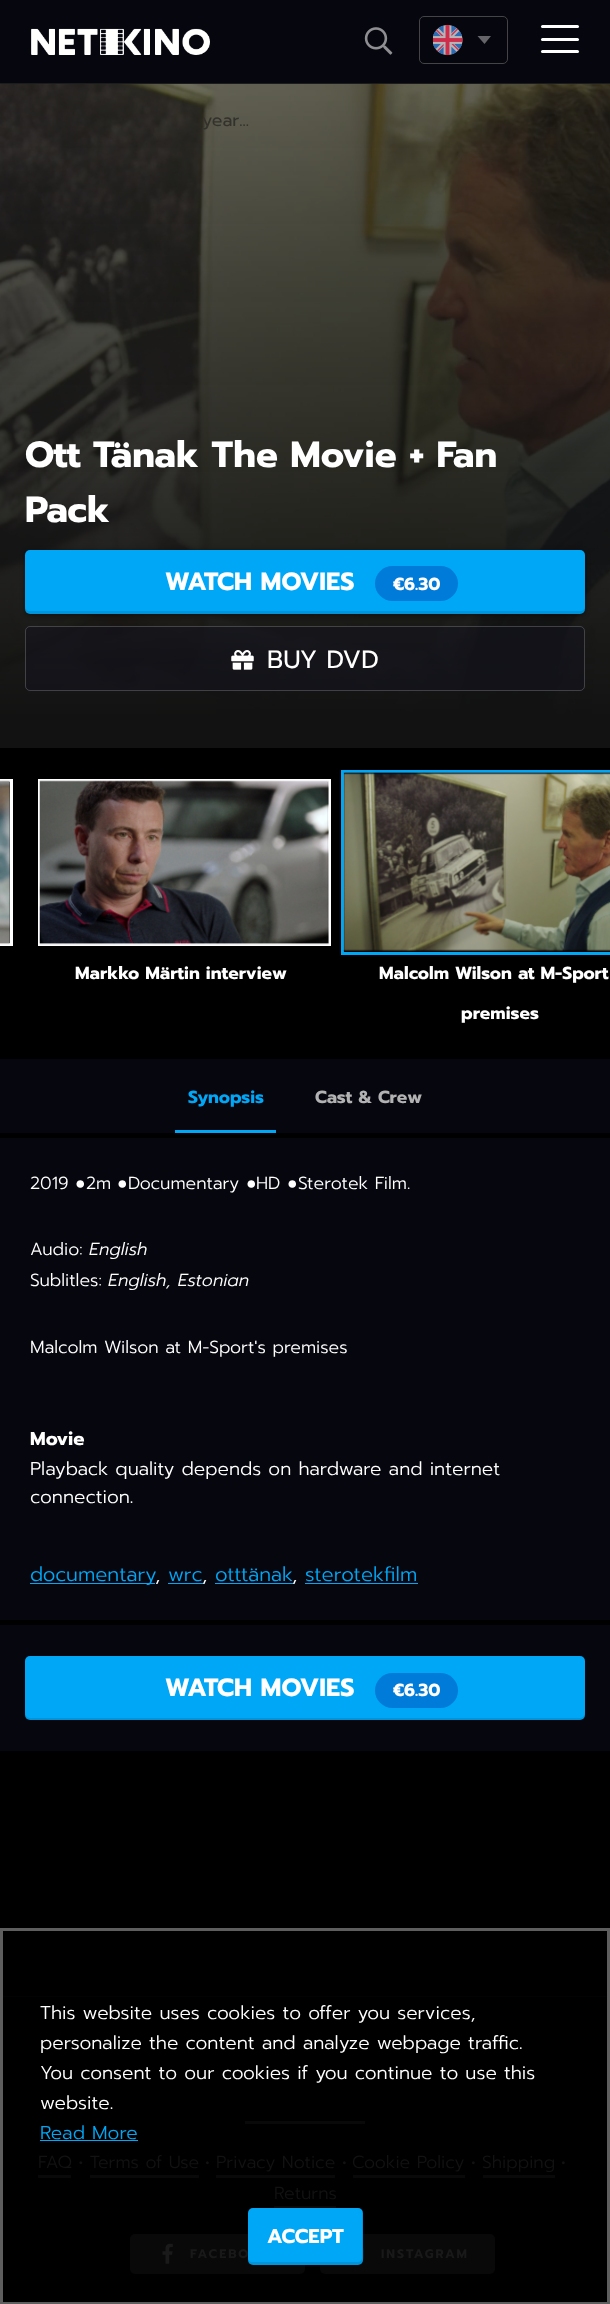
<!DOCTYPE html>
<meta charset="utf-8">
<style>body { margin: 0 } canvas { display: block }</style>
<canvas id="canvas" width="610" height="2304"></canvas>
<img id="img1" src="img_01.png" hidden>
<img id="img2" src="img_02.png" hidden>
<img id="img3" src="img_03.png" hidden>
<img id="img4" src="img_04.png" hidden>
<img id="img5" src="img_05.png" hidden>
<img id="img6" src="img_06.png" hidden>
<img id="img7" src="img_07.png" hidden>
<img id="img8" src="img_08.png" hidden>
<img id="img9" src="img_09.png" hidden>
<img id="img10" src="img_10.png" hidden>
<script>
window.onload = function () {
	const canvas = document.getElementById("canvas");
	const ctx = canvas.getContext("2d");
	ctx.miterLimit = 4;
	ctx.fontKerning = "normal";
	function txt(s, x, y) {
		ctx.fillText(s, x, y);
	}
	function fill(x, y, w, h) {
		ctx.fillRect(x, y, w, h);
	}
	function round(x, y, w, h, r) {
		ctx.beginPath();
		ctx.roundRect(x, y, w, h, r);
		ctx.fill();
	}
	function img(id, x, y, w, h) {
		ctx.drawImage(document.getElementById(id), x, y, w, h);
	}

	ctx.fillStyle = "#000000";
	fill(0, 0, 610, 2304);
	ctx.fillStyle = "#06060E";
	fill(0, 0, 610, 83);
	ctx.fillStyle = "#1C1C1C";
	fill(0, 83, 610, 1);
	img("img1", 31, 28, 179, 27);
	img("img2", 364, 27, 29, 28);
	ctx.beginPath();
	ctx.roundRect(419.5, 16.5, 88, 47, 4.5);
	ctx.strokeStyle = "#444446";
	ctx.stroke();
	img("img3", 433, 25, 30, 30);
	ctx.fillStyle = "#656569";
	ctx.beginPath();
	ctx.moveTo(484.5, 44);
	ctx.lineTo(477.5, 36);
	ctx.lineTo(491, 36);
	ctx.closePath();
	ctx.fill("evenodd");
	ctx.fillStyle = "#FFFFFF";
	round(541, 38, 38, 3, 1.5);
	round(541, 25, 38, 3, 1.5);
	round(541, 50, 38, 3, 1.5);
	img("img4", 0, 84, 610, 664);
	ctx.fillStyle = "rgba(0, 0, 0, 0.5)";
	ctx.filter = "blur(2.5px)";
	ctx.beginPath();
	ctx.roundRect(25, 551, 560, 64, 5);
	ctx.fill();
	ctx.filter = "none";
	ctx.fillStyle = "#00A7F6";
	round(25, 550, 560, 64, 5);
	ctx.fillStyle = "rgba(0, 0, 0, 0.11)";
	ctx.beginPath();
	ctx.moveTo(25, 606);
	ctx.lineTo(25, 609);
	ctx.bezierCurveTo(25, 612, 27, 614, 30, 614);
	ctx.lineTo(580, 614);
	ctx.bezierCurveTo(583, 614, 585, 612, 585, 609);
	ctx.lineTo(585, 606);
	ctx.bezierCurveTo(585, 609, 583, 611, 580, 611);
	ctx.lineTo(30, 611);
	ctx.bezierCurveTo(27, 611, 25, 609, 25, 606);
	ctx.closePath();
	ctx.fill();
	ctx.fillStyle = "#007BDA";
	round(375, 566, 83, 35, 17.5);
	ctx.fillStyle = "rgba(17, 17, 29, 0.5)";
	round(25, 626, 560, 65, 5);
	ctx.beginPath();
	ctx.roundRect(25.5, 626.5, 559, 64, 4.5);
	ctx.strokeStyle = "rgba(204, 204, 204, 0.25)";
	ctx.stroke();
	img("img5", 231, 650, 23, 20);
	ctx.strokeStyle = "#FFFFFF";
	ctx.lineWidth = 3;
	ctx.strokeRect(-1.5, 780.5, 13, 164);
	img("img6", 0, 780, 10, 165);
	ctx.strokeRect(39.5, 780.5, 290, 164);
	img("img7", 39, 780, 290, 165);
	ctx.strokeStyle = "#00A7F6";
	ctx.strokeRect(342.5, 771.5, 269, 182);
	img("img8", 343, 772, 267, 180);
	ctx.fillStyle = "#06060E";
	fill(0, 1059, 610, 74);
	ctx.fillStyle = "#00A7F6";
	fill(175, 1130, 101, 3);
	ctx.fillStyle = "#06060E";
	fill(0, 1138, 610, 482);
	ctx.fillStyle = "#00A7F6";
	fill(30, 1583, 125, 1);
	fill(168, 1583, 35, 1);
	fill(215, 1583, 78, 1);
	fill(305, 1583, 113, 1);
	ctx.fillStyle = "#06060E";
	fill(0, 1625, 610, 126);
	ctx.fillStyle = "#00A7F6";
	round(25, 1656, 560, 64, 5);
	ctx.fillStyle = "rgba(0, 0, 0, 0.11)";
	ctx.beginPath();
	ctx.moveTo(25, 1712);
	ctx.lineTo(25, 1715);
	ctx.bezierCurveTo(25, 1718, 27, 1720, 30, 1720);
	ctx.lineTo(580, 1720);
	ctx.bezierCurveTo(583, 1720, 585, 1718, 585, 1715);
	ctx.lineTo(585, 1712);
	ctx.bezierCurveTo(585, 1715, 583, 1718, 580, 1718);
	ctx.lineTo(30, 1718);
	ctx.bezierCurveTo(27, 1718, 25, 1715, 25, 1712);
	ctx.closePath();
	ctx.fill();
	ctx.fillStyle = "#007BDA";
	round(375, 1673, 83, 35, 17.5);
	ctx.fillStyle = "#030303";
	fill(0, 1996, 610, 1);
	ctx.fillStyle = "#090909";
	fill(245, 2121, 120, 3);
	fill(38, 2175, 33, 3);
	fill(216, 2175, 119, 3);
	fill(353, 2175, 112, 3);
	fill(483, 2175, 72, 3);
	fill(90, 2175, 109, 3);
	fill(274, 2206, 62, 2);
	round(130, 2234, 175, 40, 5);
	img("img9", 162, 2243, 11, 21);
	round(320, 2234, 175, 40, 5);
	img("img10", 362, 2247, 2, 15);
	ctx.strokeStyle = "#5E5E5E";
	ctx.strokeRect(1.5, 1929.5, 607, 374);
	ctx.fillStyle = "#00A7F6";
	fill(40, 2140, 98, 1);
	round(248, 2208, 115, 57, 5);
	ctx.fillStyle = "rgba(0, 0, 0, 0.11)";
	ctx.beginPath();
	ctx.moveTo(248, 2258);
	ctx.lineTo(248, 2260);
	ctx.bezierCurveTo(248, 2263, 250, 2265, 253, 2265);
	ctx.lineTo(358, 2265);
	ctx.bezierCurveTo(361, 2265, 363, 2263, 363, 2260);
	ctx.lineTo(363, 2213);
	ctx.bezierCurveTo(363, 2212, 363, 2211, 362, 2210);
	ctx.lineTo(362, 2258);
	ctx.bezierCurveTo(362, 2260, 360, 2262, 358, 2262);
	ctx.lineTo(252, 2262);
	ctx.bezierCurveTo(250, 2262, 248, 2260, 248, 2258);
	ctx.closePath();
	ctx.fill();
	ctx.font = "17.5px Prompt";
	ctx.fillStyle = "#33312B";
	txt("year...", 202, 126);
	ctx.font = "bold 36.6px Prompt";
	ctx.fillStyle = "#FFFFFF";
	txt("Ott Tänak The Movie + Fan", 25, 467);
	txt("Pack", 25, 522);
	ctx.font = "bold 25px Prompt";
	txt("WATCH MOVIES", 165, 590);
	ctx.font = "bold 17.5px Prompt";
	txt("€6.30", 393, 590);
	ctx.font = "25px Prompt";
	txt("BUY DVD", 267, 668);
	ctx.font = "bold 17.5px Prompt";
	txt("Markko Märtin interview", 75, 979);
	txt("Malcolm Wilson at M-Sport", 379, 979);
	txt("premises", 461, 1019);
	ctx.fillStyle = "#00A7F6";
	txt("Synopsis", 188, 1103);
	ctx.fillStyle = "#B2B2B2";
	txt("Cast & Crew", 315, 1103);
	ctx.font = "300 17.5px Prompt";
	ctx.fillStyle = "#FFFFFF";
	txt("2019", 30, 1189);
	ctx.font = "17.5px Liberation Sans";
	txt("●", 75, 1189);
	ctx.font = "300 17.5px Prompt";
	txt("2m", 86, 1189);
	ctx.font = "17.5px Liberation Sans";
	txt("●", 117, 1189);
	ctx.font = "300 17.5px Prompt";
	txt("Documentary", 128, 1189);
	ctx.font = "17.5px Liberation Sans";
	txt("●", 246, 1189);
	ctx.font = "300 17.5px Prompt";
	txt("HD", 256, 1189);
	ctx.font = "17.5px Liberation Sans";
	txt("●", 287, 1189);
	ctx.font = "300 17.5px Prompt";
	txt("Sterotek Film.", 298, 1189);
	txt("Audio:", 30, 1255);
	ctx.font = "italic 300 17.5px Prompt";
	txt("English", 89, 1255);
	ctx.font = "300 17.5px Prompt";
	txt("Sublitles:", 30, 1286);
	ctx.font = "italic 300 17.5px Prompt";
	txt("English, Estonian", 108, 1286);
	ctx.font = "300 17.5px Prompt";
	txt("Malcolm Wilson at M-Sport's premises", 30, 1353);
	ctx.font = "bold 18.75px Prompt";
	txt("Movie", 30, 1445);
	ctx.font = "300 18.75px Prompt";
	txt("Playback quality depends on hardware and internet", 30, 1475);
	txt("connection.", 30, 1503);
	ctx.font = "300 20px Prompt";
	ctx.fillStyle = "#00A7F6";
	txt("documentary", 30, 1581);
	ctx.fillStyle = "#FFFFFF";
	txt(",", 155, 1581);
	ctx.fillStyle = "#00A7F6";
	txt("wrc", 168, 1581);
	ctx.fillStyle = "#FFFFFF";
	txt(",", 202, 1581);
	ctx.fillStyle = "#00A7F6";
	txt("otttänak", 215, 1581);
	ctx.fillStyle = "#FFFFFF";
	txt(",", 292, 1581);
	ctx.fillStyle = "#00A7F6";
	txt("sterotekfilm", 305, 1581);
	ctx.font = "bold 25px Prompt";
	ctx.fillStyle = "#FFFFFF";
	txt("WATCH MOVIES", 165, 1696);
	ctx.font = "bold 17.5px Prompt";
	txt("€6.30", 393, 1696);
	ctx.font = "300 17.5px Prompt";
	ctx.fillStyle = "#121212";
	txt("FAQ • Terms of Use", 38, 2168);
	txt("•", 205, 2168);
	txt("Privacy Notice", 216, 2168);
	txt("•", 342, 2168);
	txt("Cookie Policy", 352, 2168);
	txt("•", 471, 2168);
	txt("Shipping", 482, 2168);
	txt("•", 561, 2168);
	txt("Returns", 274, 2199);
	ctx.letterSpacing = "2px";
	ctx.font = "bold 12.5px Prompt";
	ctx.fillStyle = "#191919";
	txt("FACEBO", 190, 2258);
	txt("INSTAGRAM", 381, 2258);
	ctx.letterSpacing = "0px";
	ctx.font = "300 18.75px Prompt";
	ctx.fillStyle = "#FFFFFF";
	txt("This website uses cookies to offer you services,", 40, 2019);
	txt("personalize the content and analyze webpage traffic.", 40, 2049);
	txt("You consent to our cookies if you continue to use this", 40, 2079);
	txt("website.", 40, 2109);
	ctx.fillStyle = "#00A7F6";
	txt("Read More", 40, 2139);
	ctx.font = "bold 20px Prompt";
	ctx.fillStyle = "#FFFFFF";
	txt("ACCEPT", 267, 2243);
};
</script>
